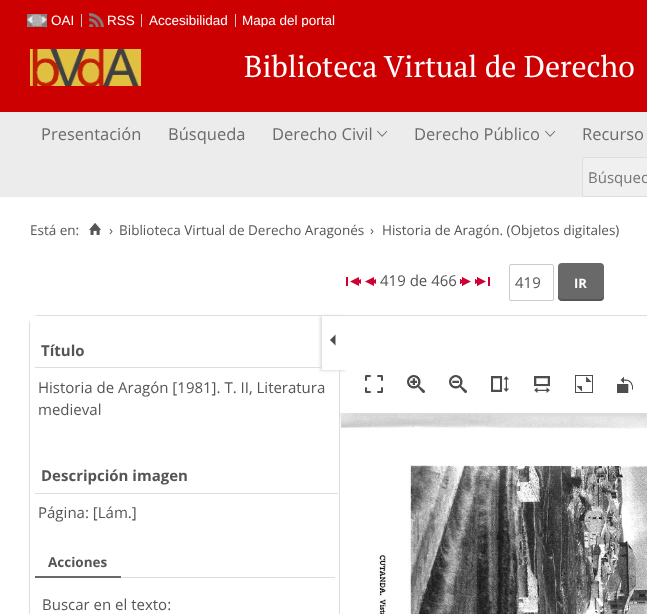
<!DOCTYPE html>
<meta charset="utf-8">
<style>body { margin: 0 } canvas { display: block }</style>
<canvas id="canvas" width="647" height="614"></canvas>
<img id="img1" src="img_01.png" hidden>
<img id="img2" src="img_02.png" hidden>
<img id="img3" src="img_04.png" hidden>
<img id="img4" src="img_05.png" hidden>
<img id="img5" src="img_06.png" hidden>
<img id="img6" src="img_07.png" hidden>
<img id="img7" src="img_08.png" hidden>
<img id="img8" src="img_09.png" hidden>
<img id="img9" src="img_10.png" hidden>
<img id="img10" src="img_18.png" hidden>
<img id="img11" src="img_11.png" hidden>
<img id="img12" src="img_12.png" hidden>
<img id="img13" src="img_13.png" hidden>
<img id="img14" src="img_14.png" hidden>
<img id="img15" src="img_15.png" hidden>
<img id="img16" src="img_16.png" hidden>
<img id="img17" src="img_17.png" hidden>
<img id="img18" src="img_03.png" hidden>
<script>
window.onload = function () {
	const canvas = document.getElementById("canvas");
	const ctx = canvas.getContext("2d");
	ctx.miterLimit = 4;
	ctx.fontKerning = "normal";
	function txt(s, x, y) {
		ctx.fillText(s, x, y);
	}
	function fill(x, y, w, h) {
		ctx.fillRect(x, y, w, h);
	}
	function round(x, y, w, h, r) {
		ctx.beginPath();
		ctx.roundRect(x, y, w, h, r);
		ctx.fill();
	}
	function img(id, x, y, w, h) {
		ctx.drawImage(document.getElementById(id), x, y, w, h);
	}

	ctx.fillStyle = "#FFFFFF";
	fill(0, 0, 647, 614);
	ctx.fillStyle = "#CC0000";
	fill(0, 0, 647, 27);
	img("img1", 27, 14, 20, 13);
	ctx.fillStyle = "#CCCCCC";
	fill(81, 14, 1, 13);
	img("img2", 89, 13, 15, 14);
	fill(141, 14, 1, 13);
	fill(235, 14, 1, 13);
	ctx.fillStyle = "#ECECEC";
	fill(0, 112, 647, 85);
	img("img3", 377, 130, 11, 7);
	img("img3", 545, 130, 11, 7);
	ctx.fillStyle = "#F0F0F0";
	ctx.beginPath();
	ctx.roundRect(582.5, 157.5, 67, 39, 1.5);
	ctx.fill();
	ctx.strokeStyle = "#DDDDDD";
	ctx.stroke();
	img("img4", 89, 223, 12, 12);
	img("img5", 346, 277, 15, 9);
	img("img6", 365, 277, 11, 9);
	img("img7", 460, 277, 11, 9);
	img("img8", 475, 277, 15, 9);
	ctx.beginPath();
	ctx.roundRect(509.5, 264.5, 44, 36, 1.5);
	ctx.strokeStyle = "#CCCCCC";
	ctx.stroke();
	ctx.fillStyle = "#696969";
	round(558, 263, 46, 38, 4);
	ctx.fillStyle = "#555555";
	ctx.beginPath();
	ctx.moveTo(558, 295);
	ctx.bezierCurveTo(558, 302, 562, 301, 568, 301);
	ctx.lineTo(594, 301);
	ctx.bezierCurveTo(600, 301, 604, 302, 604, 295);
	ctx.bezierCurveTo(604, 297, 602, 299, 600, 299);
	ctx.lineTo(562, 299);
	ctx.bezierCurveTo(560, 299, 558, 297, 558, 295);
	ctx.closePath();
	ctx.fill();
	ctx.beginPath();
	ctx.roundRect(29.5, 315.5, 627, 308, 8.5);
	ctx.strokeStyle = "#DDDDDD";
	ctx.stroke();
	ctx.fillStyle = "#FFFFFF";
	fill(30, 316, 7, 7);
	ctx.fillStyle = "#DDDDDD";
	fill(339, 370, 1, 244);
	fill(35, 367, 287, 1);
	fill(35, 493, 303, 1);
	fill(121, 577, 214, 1);
	ctx.fillStyle = "#696969";
	fill(35, 576, 86, 2);
	ctx.fillStyle = "#DDDDDD";
	ctx.filter = "blur(1.5px)";
	ctx.beginPath();
	ctx.rect(320, 316, 25, 55);
	ctx.fill();
	ctx.filter = "none";
	ctx.fillStyle = "#FFFFFF";
	fill(322, 316, 25, 54);
	img("img9", 330, 334, 6, 12);
	img("img10", 341, 414, 306, 200);
	ctx.save();
	ctx.beginPath();
	ctx.rect(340, 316, 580, 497);
	ctx.clip();
	ctx.beginPath();
	ctx.rect(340, 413, 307, 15);
	ctx.clip();
	ctx.fillStyle = "rgba(0, 0, 0, 0.3)";
	ctx.filter = "blur(10px)";
	ctx.beginPath();
	ctx.rect(340, 316, 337, 97);
	ctx.fill();
	ctx.filter = "none";
	ctx.restore();
	img("img11", 365, 375, 18, 18);
	img("img12", 407, 375, 18, 18);
	img("img13", 449, 375, 18, 18);
	img("img14", 491, 376, 18, 16);
	img("img15", 534, 376, 16, 17);
	img("img16", 575, 375, 18, 18);
	img("img17", 617, 376, 16, 17);
	ctx.font = "13.5px Liberation Sans";
	txt("OAI", 51, 25);
	txt("RSS", 107, 25);
	txt("Accesibilidad", 149, 25);
	txt("Mapa del portal", 242, 25);
	ctx.fillStyle = "#CC0000";
	fill(0, 27, 647, 85);
	img("img18", 30, 49, 111, 37);
	ctx.font = "30px PT Serif";
	ctx.fillStyle = "#FFFFFF";
	txt("Biblioteca Virtual de Derecho", 244, 77);
	ctx.font = "16.5px Open Sans";
	ctx.fillStyle = "#6B6B6B";
	txt("Presentación", 41, 140);
	txt("Búsqueda", 168, 140);
	txt("Derecho Civil", 272, 140);
	txt("Derecho Público", 414, 140);
	txt("Recurso", 582, 140);
	ctx.font = "15px Open Sans";
	ctx.fillStyle = "#757575";
	txt("Búsqued", 588, 183);
	ctx.font = "13.5px Open Sans";
	ctx.fillStyle = "#555555";
	txt("Está en:", 30, 235);
	txt("›", 109, 235);
	txt("Biblioteca Virtual de Derecho Aragonés", 119, 235);
	txt("›", 370, 235);
	txt("Historia de Aragón. (Objetos digitales)", 382, 235);
	ctx.font = "15px Open Sans";
	txt("419 de 466", 380, 286);
	txt("419", 515, 288);
	ctx.font = "bold 13px Open Sans";
	ctx.fillStyle = "#FFFFFF";
	txt("IR", 574, 288);
	ctx.font = "bold 15px Open Sans";
	ctx.fillStyle = "#555555";
	txt("Título", 41, 356);
	ctx.font = "15px Open Sans";
	txt("Historia de Aragón [1981]. T. II, Literatura", 38, 393);
	txt("medieval", 38, 415);
	ctx.font = "bold 15px Open Sans";
	txt("Descripción imagen", 41, 481);
	ctx.font = "15px Open Sans";
	txt("Página: [Lám.]", 38, 518);
	ctx.font = "bold 13.5px Open Sans";
	txt("Acciones", 48, 567);
	ctx.font = "15px Open Sans";
	txt("Buscar en el texto:", 42, 610);
};
</script>
